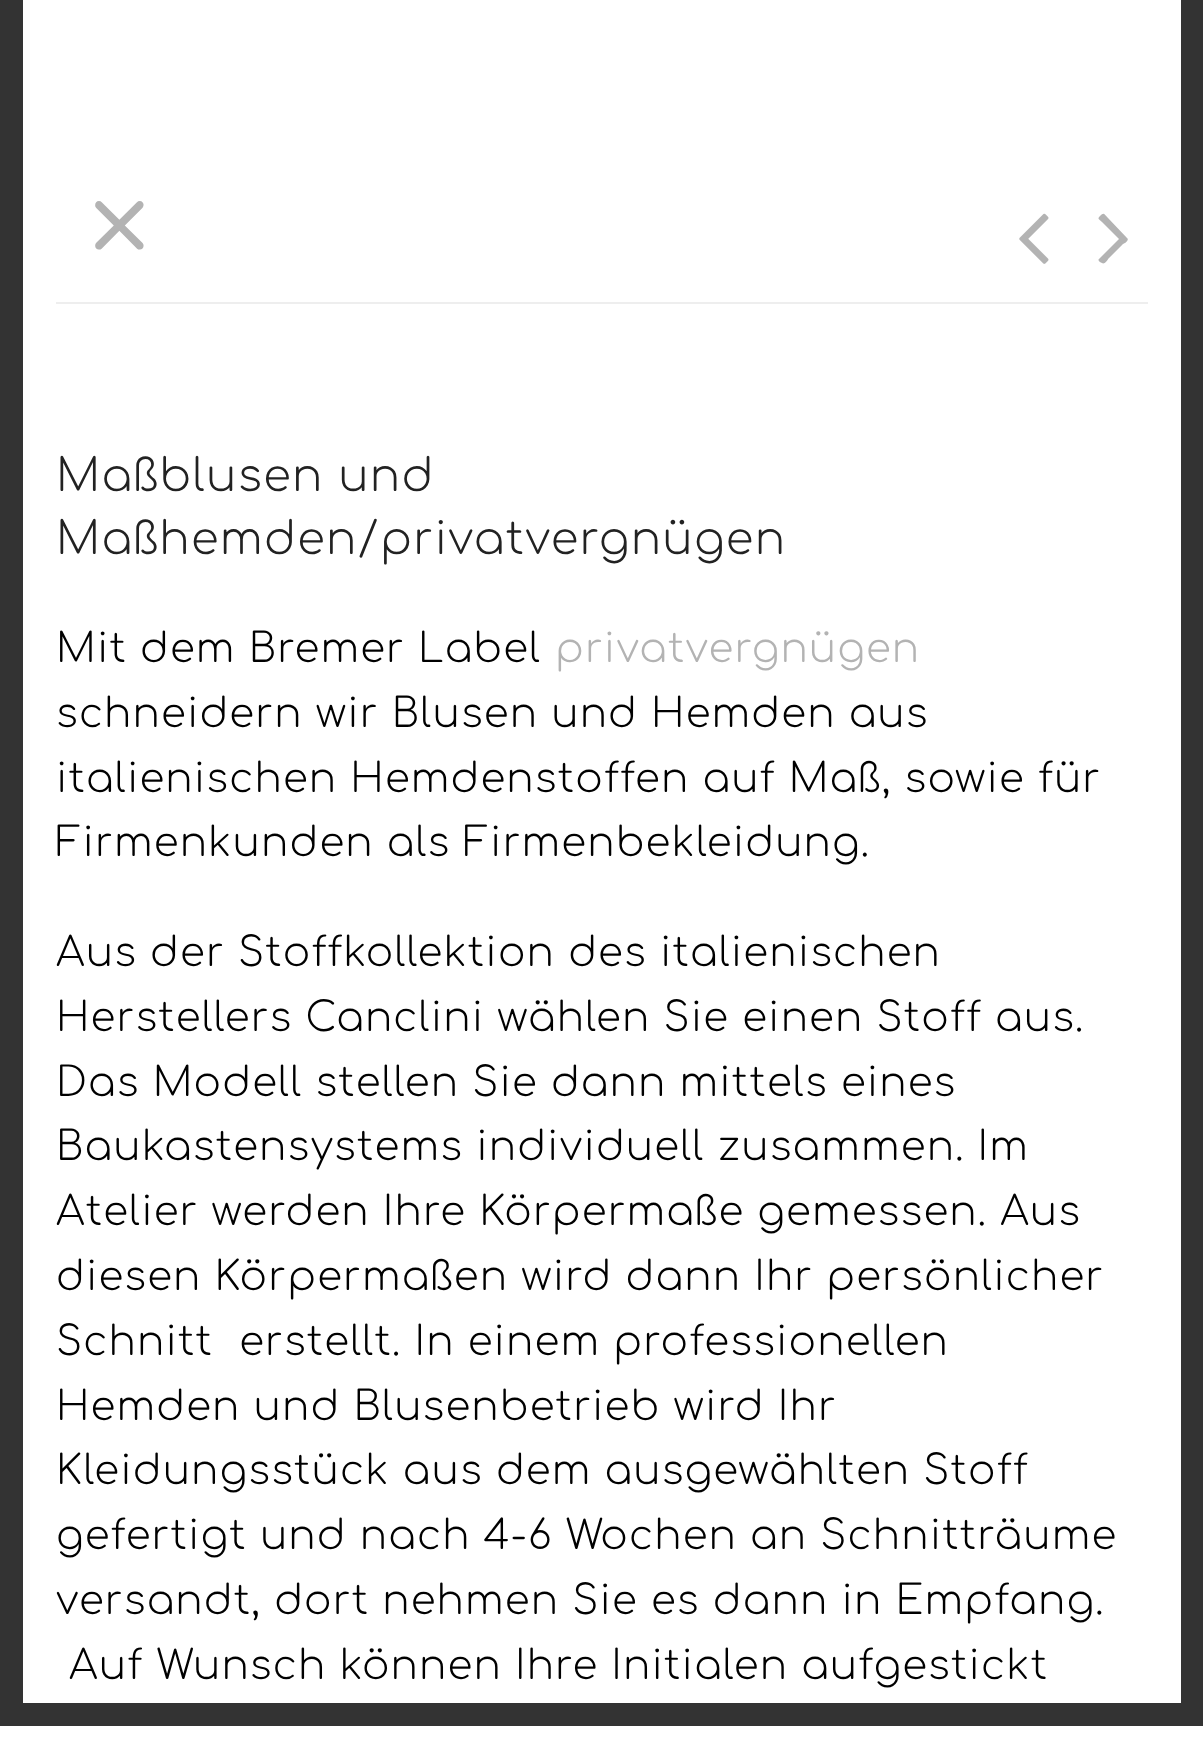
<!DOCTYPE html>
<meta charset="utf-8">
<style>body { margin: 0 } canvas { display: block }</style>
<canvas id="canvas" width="1203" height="1759"></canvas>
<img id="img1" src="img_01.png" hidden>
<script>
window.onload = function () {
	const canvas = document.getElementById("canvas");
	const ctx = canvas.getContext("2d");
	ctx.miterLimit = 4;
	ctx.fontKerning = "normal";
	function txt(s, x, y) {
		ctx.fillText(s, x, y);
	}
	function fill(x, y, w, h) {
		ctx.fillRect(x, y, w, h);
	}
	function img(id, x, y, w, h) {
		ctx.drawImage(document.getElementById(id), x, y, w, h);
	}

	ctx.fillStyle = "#FFFFFF";
	fill(0, 0, 1203, 1759);
	ctx.strokeStyle = "#333333";
	ctx.lineWidth = 23;
	ctx.strokeRect(11.5, -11.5, 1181, 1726);
	ctx.fillStyle = "#EEEEEE";
	fill(56, 302, 1092, 2);
	img("img1", 1019, 213, 30, 51);
	ctx.fillStyle = "#B3B3B3";
	ctx.beginPath();
	ctx.moveTo(1127, 238);
	ctx.bezierCurveTo(1130, 240, 1124, 244, 1123, 244);
	ctx.lineTo(1108, 259);
	ctx.bezierCurveTo(1108, 260, 1104, 265, 1102, 263);
	ctx.bezierCurveTo(1101, 263, 1097, 260, 1099, 259);
	ctx.lineTo(1119, 239);
	ctx.lineTo(1102, 222);
	ctx.bezierCurveTo(1099, 219, 1097, 219, 1100, 216);
	ctx.bezierCurveTo(1104, 212, 1104, 214, 1108, 218);
	ctx.closePath();
	ctx.fill();
	ctx.letterSpacing = "1px";
	ctx.font = "300 126px Comfortaa";
	txt("×", 90, 270);
	ctx.letterSpacing = "1.35px";
	ctx.font = "300 45px Comfortaa";
	ctx.fillStyle = "#222222";
	txt("Maßblusen und", 56, 491);
	txt("Maßhemden/privatvergnügen", 56, 554);
	ctx.letterSpacing = "1.2px";
	ctx.font = "300 40.5px Comfortaa";
	ctx.fillStyle = "#000000";
	txt("Mit dem Bremer Label", 56, 662);
	ctx.fillStyle = "#B3B3B3";
	txt("privatvergnügen", 555, 662);
	ctx.fillStyle = "#000000";
	txt("schneidern wir Blusen und Hemden aus", 56, 727);
	txt("italienischen Hemdenstoffen auf Maß, sowie für", 56, 792);
	txt("Firmenkunden als Firmenbekleidung.", 56, 856);
	txt("Aus der Stoffkollektion des italienischen", 56, 966);
	txt("Herstellers Canclini wählen Sie einen Stoff aus.", 56, 1031);
	txt("Das Modell stellen Sie dann mittels eines", 56, 1096);
	txt("Baukastensystems individuell zusammen. Im", 56, 1160);
	txt("Atelier werden Ihre Körpermaße gemessen. Aus", 56, 1225);
	txt("diesen Körpermaßen wird dann Ihr persönlicher", 56, 1290);
	txt("Schnitt  erstellt. In einem professionellen", 56, 1355);
	txt("Hemden und Blusenbetrieb wird Ihr", 56, 1420);
	txt("Kleidungsstück aus dem ausgewählten Stoff", 56, 1484);
	txt("gefertigt und nach 4-6 Wochen an Schnitträume", 56, 1549);
	txt("versandt, dort nehmen Sie es dann in Empfang.", 56, 1614);
	txt("Auf Wunsch können Ihre Initialen aufgestickt", 69, 1679);
};
</script>
